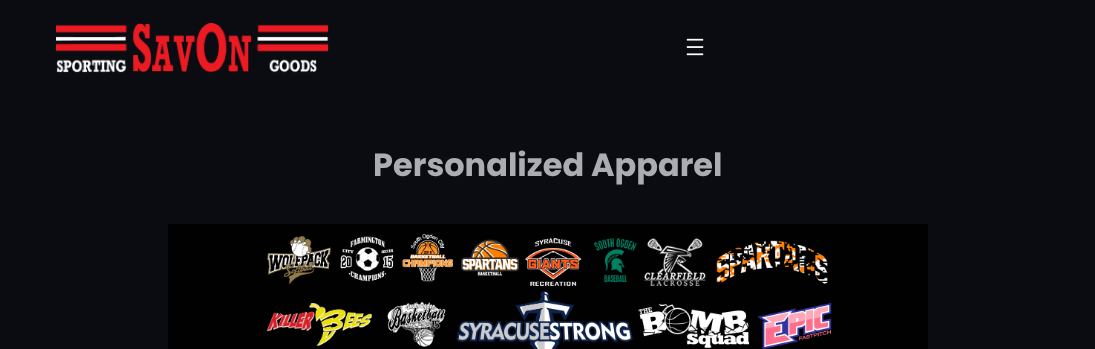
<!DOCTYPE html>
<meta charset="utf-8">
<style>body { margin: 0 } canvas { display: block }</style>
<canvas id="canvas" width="1095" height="349"></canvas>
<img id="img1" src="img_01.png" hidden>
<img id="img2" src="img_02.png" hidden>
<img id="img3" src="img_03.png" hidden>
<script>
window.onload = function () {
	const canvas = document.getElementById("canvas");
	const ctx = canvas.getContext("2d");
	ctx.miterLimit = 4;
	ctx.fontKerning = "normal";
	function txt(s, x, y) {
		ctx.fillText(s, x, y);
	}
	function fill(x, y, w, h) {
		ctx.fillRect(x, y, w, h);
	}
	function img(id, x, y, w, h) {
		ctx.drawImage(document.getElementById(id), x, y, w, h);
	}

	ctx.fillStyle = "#0A0C11";
	fill(0, 0, 1095, 349);
	img("img1", 56, 23, 273, 50);
	img("img2", 686, 38, 18, 18);
	img("img3", 168, 224, 760, 125);
	ctx.font = "bold 32px Poppins";
	ctx.fillStyle = "#ABADB3";
	txt("Personalized Apparel", 373, 176);
};
</script>
